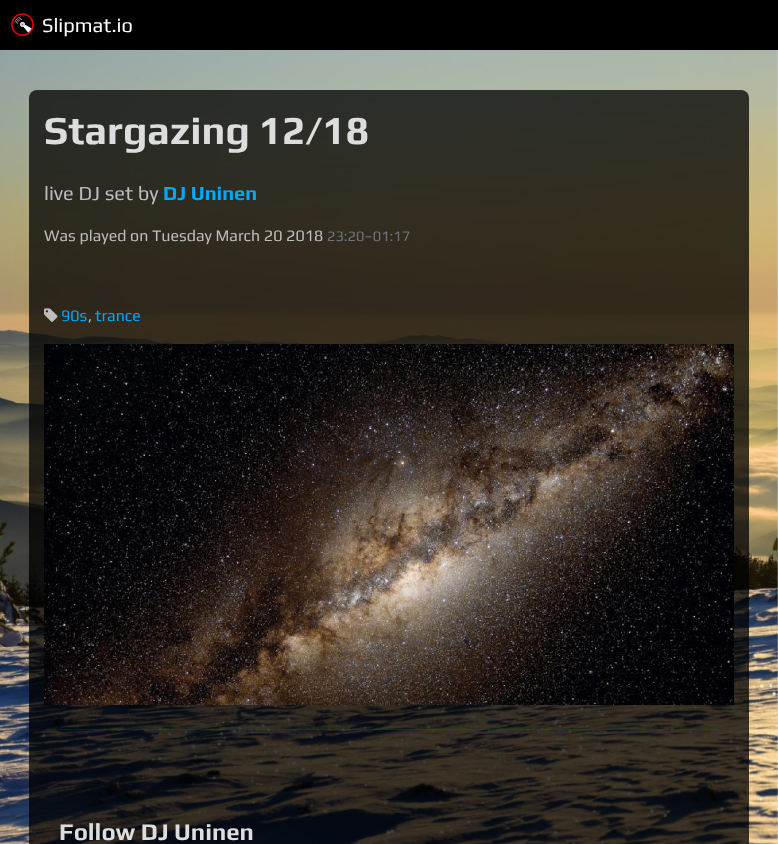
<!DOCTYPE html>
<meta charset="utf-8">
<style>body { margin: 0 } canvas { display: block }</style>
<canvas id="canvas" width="778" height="844"></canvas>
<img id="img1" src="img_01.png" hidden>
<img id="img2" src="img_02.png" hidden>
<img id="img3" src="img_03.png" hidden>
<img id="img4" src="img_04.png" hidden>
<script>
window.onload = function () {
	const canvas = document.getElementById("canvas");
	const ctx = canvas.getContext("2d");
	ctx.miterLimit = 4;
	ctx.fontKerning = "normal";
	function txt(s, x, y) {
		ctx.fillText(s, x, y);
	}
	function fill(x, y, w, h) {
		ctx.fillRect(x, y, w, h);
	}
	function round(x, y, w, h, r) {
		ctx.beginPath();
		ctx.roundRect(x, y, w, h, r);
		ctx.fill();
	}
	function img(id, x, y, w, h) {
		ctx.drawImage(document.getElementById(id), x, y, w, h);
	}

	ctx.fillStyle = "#FFFFFF";
	fill(0, 0, 778, 844);
	img("img1", 0, 50, 778, 794);
	ctx.fillStyle = "#000000";
	fill(0, 0, 778, 50);
	img("img2", 11, 13, 23, 23);
	ctx.fillStyle = "rgba(0, 0, 0, 0.75)";
	round(29, 90, 720, 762, 8);
	img("img3", 44, 308, 14, 14);
	img("img4", 44, 344, 690, 361);
	ctx.fillStyle = "rgba(0, 82, 255, 0.25)";
	fill(59, 729, 660, 1);
	ctx.font = "20px Play";
	ctx.fillStyle = "#FFFFFF";
	txt("Slipmat.io", 42, 32);
	ctx.font = "bold 40px Play";
	ctx.fillStyle = "#DDDDDD";
	txt("Stargazing 12/18", 44, 144);
	ctx.font = "20px Play";
	ctx.fillStyle = "#BDBDBD";
	txt("live DJ set by", 44, 200);
	ctx.font = "bold 20px Play";
	ctx.fillStyle = "#00A9FF";
	txt("DJ Uninen", 163, 200);
	ctx.font = "16px Play";
	ctx.fillStyle = "#BDBDBD";
	txt("Was played on Tuesday March 20 2018", 44, 241);
	ctx.font = "14.5px Play";
	ctx.fillStyle = "#6C757D";
	txt("23:20–01:17", 327, 241);
	ctx.font = "16px Play";
	ctx.fillStyle = "#00A9FF";
	txt("90s", 61, 321);
	ctx.fillStyle = "#BDBDBD";
	txt(",", 88, 321);
	ctx.fillStyle = "#00A9FF";
	txt("trance", 95, 321);
	ctx.font = "bold 24px Play";
	ctx.fillStyle = "#DDDDDD";
	txt("Follow DJ Uninen", 59, 840);
};
</script>
